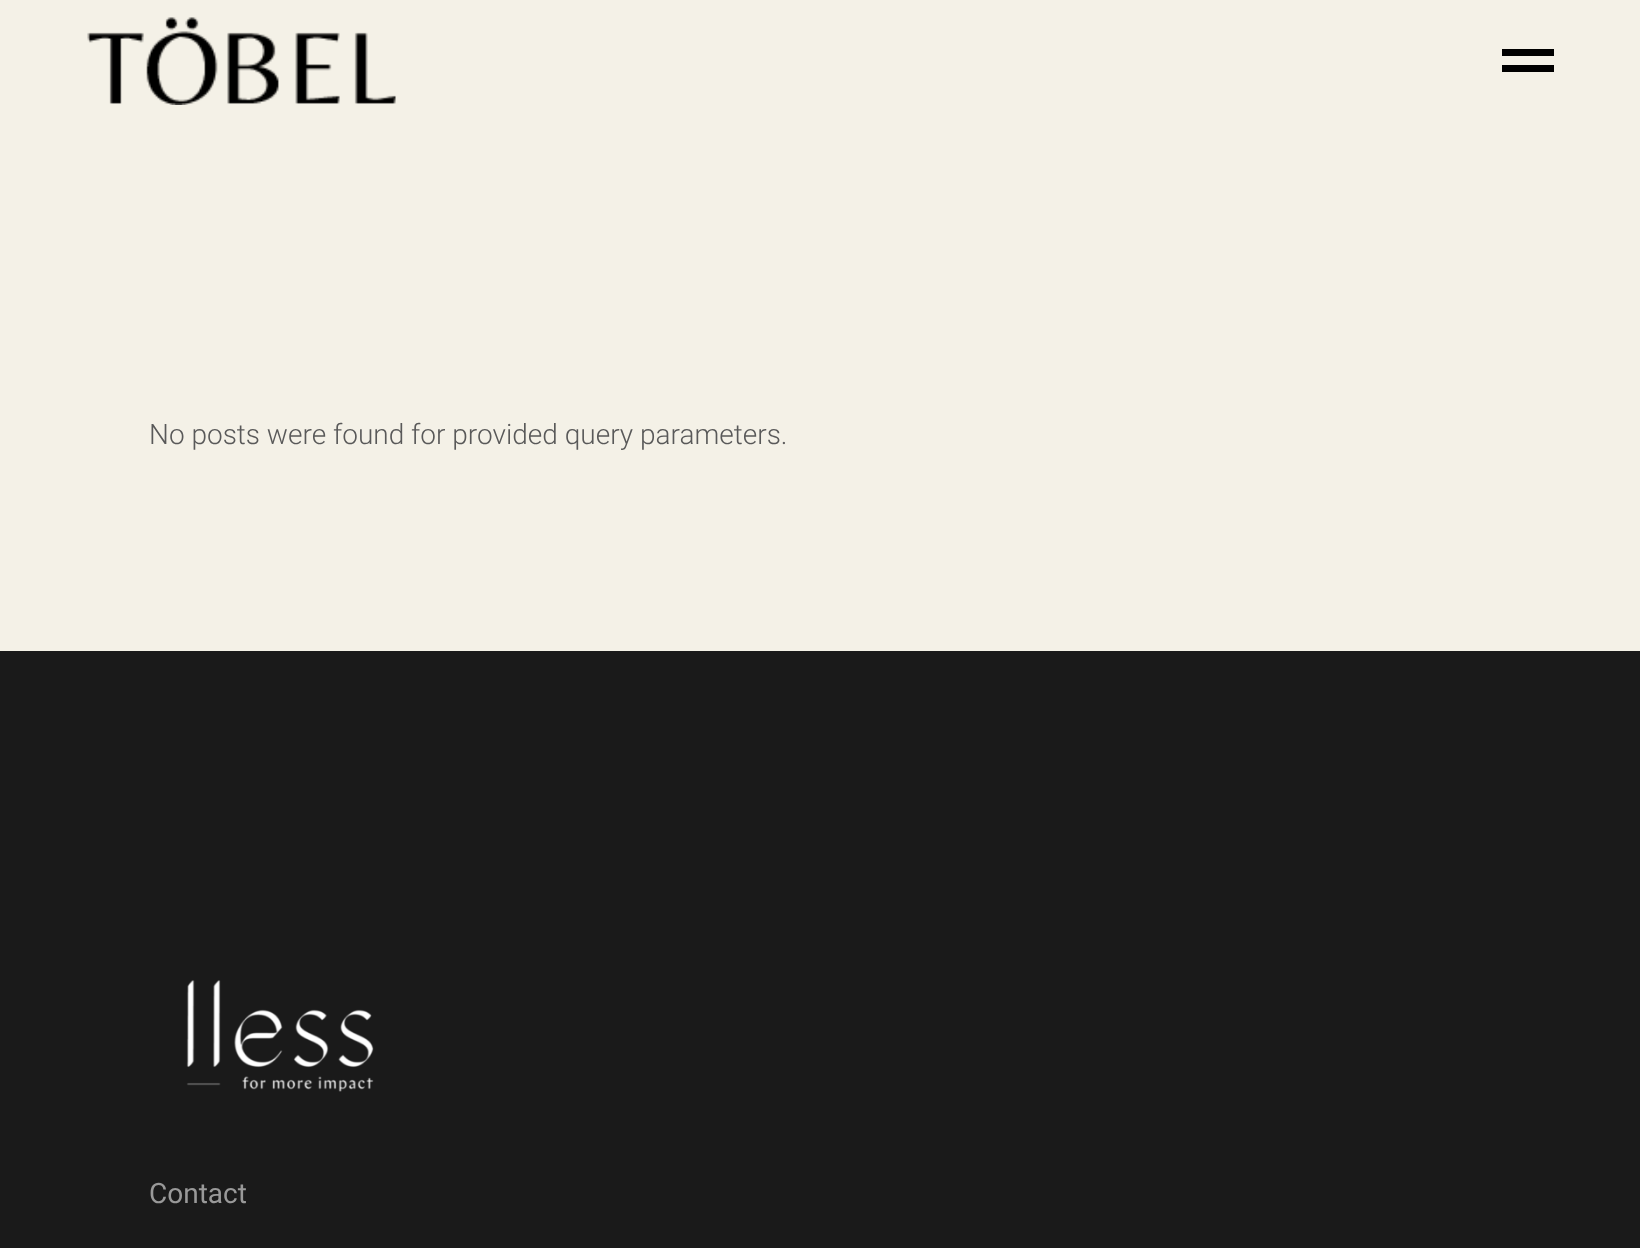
<!DOCTYPE html>
<meta charset="utf-8">
<style>body { margin: 0 } canvas { display: block }</style>
<canvas id="canvas" width="1640" height="1248"></canvas>
<img id="img1" src="img_01.png" hidden>
<img id="img2" src="img_02.png" hidden>
<script>
window.onload = function () {
	const canvas = document.getElementById("canvas");
	const ctx = canvas.getContext("2d");
	ctx.miterLimit = 4;
	ctx.fontKerning = "normal";
	function txt(s, x, y) {
		ctx.fillText(s, x, y);
	}
	function fill(x, y, w, h) {
		ctx.fillRect(x, y, w, h);
	}
	function img(id, x, y, w, h) {
		ctx.drawImage(document.getElementById(id), x, y, w, h);
	}

	ctx.fillStyle = "#F4F1E7";
	fill(0, 0, 1640, 1248);
	img("img1", 87, 17, 309, 88);
	ctx.fillStyle = "#000000";
	fill(1502, 49, 52, 7);
	fill(1502, 65, 52, 7);
	ctx.fillStyle = "#1A1A1A";
	fill(0, 651, 1640, 597);
	img("img2", 186, 980, 188, 112);
	ctx.font = "300 28px Roboto";
	ctx.fillStyle = "#595959";
	txt("No posts were found for provided query parameters.", 149, 444);
	ctx.font = "28px Roboto";
	ctx.fillStyle = "#999999";
	txt("Contact", 149, 1203);
};
</script>
